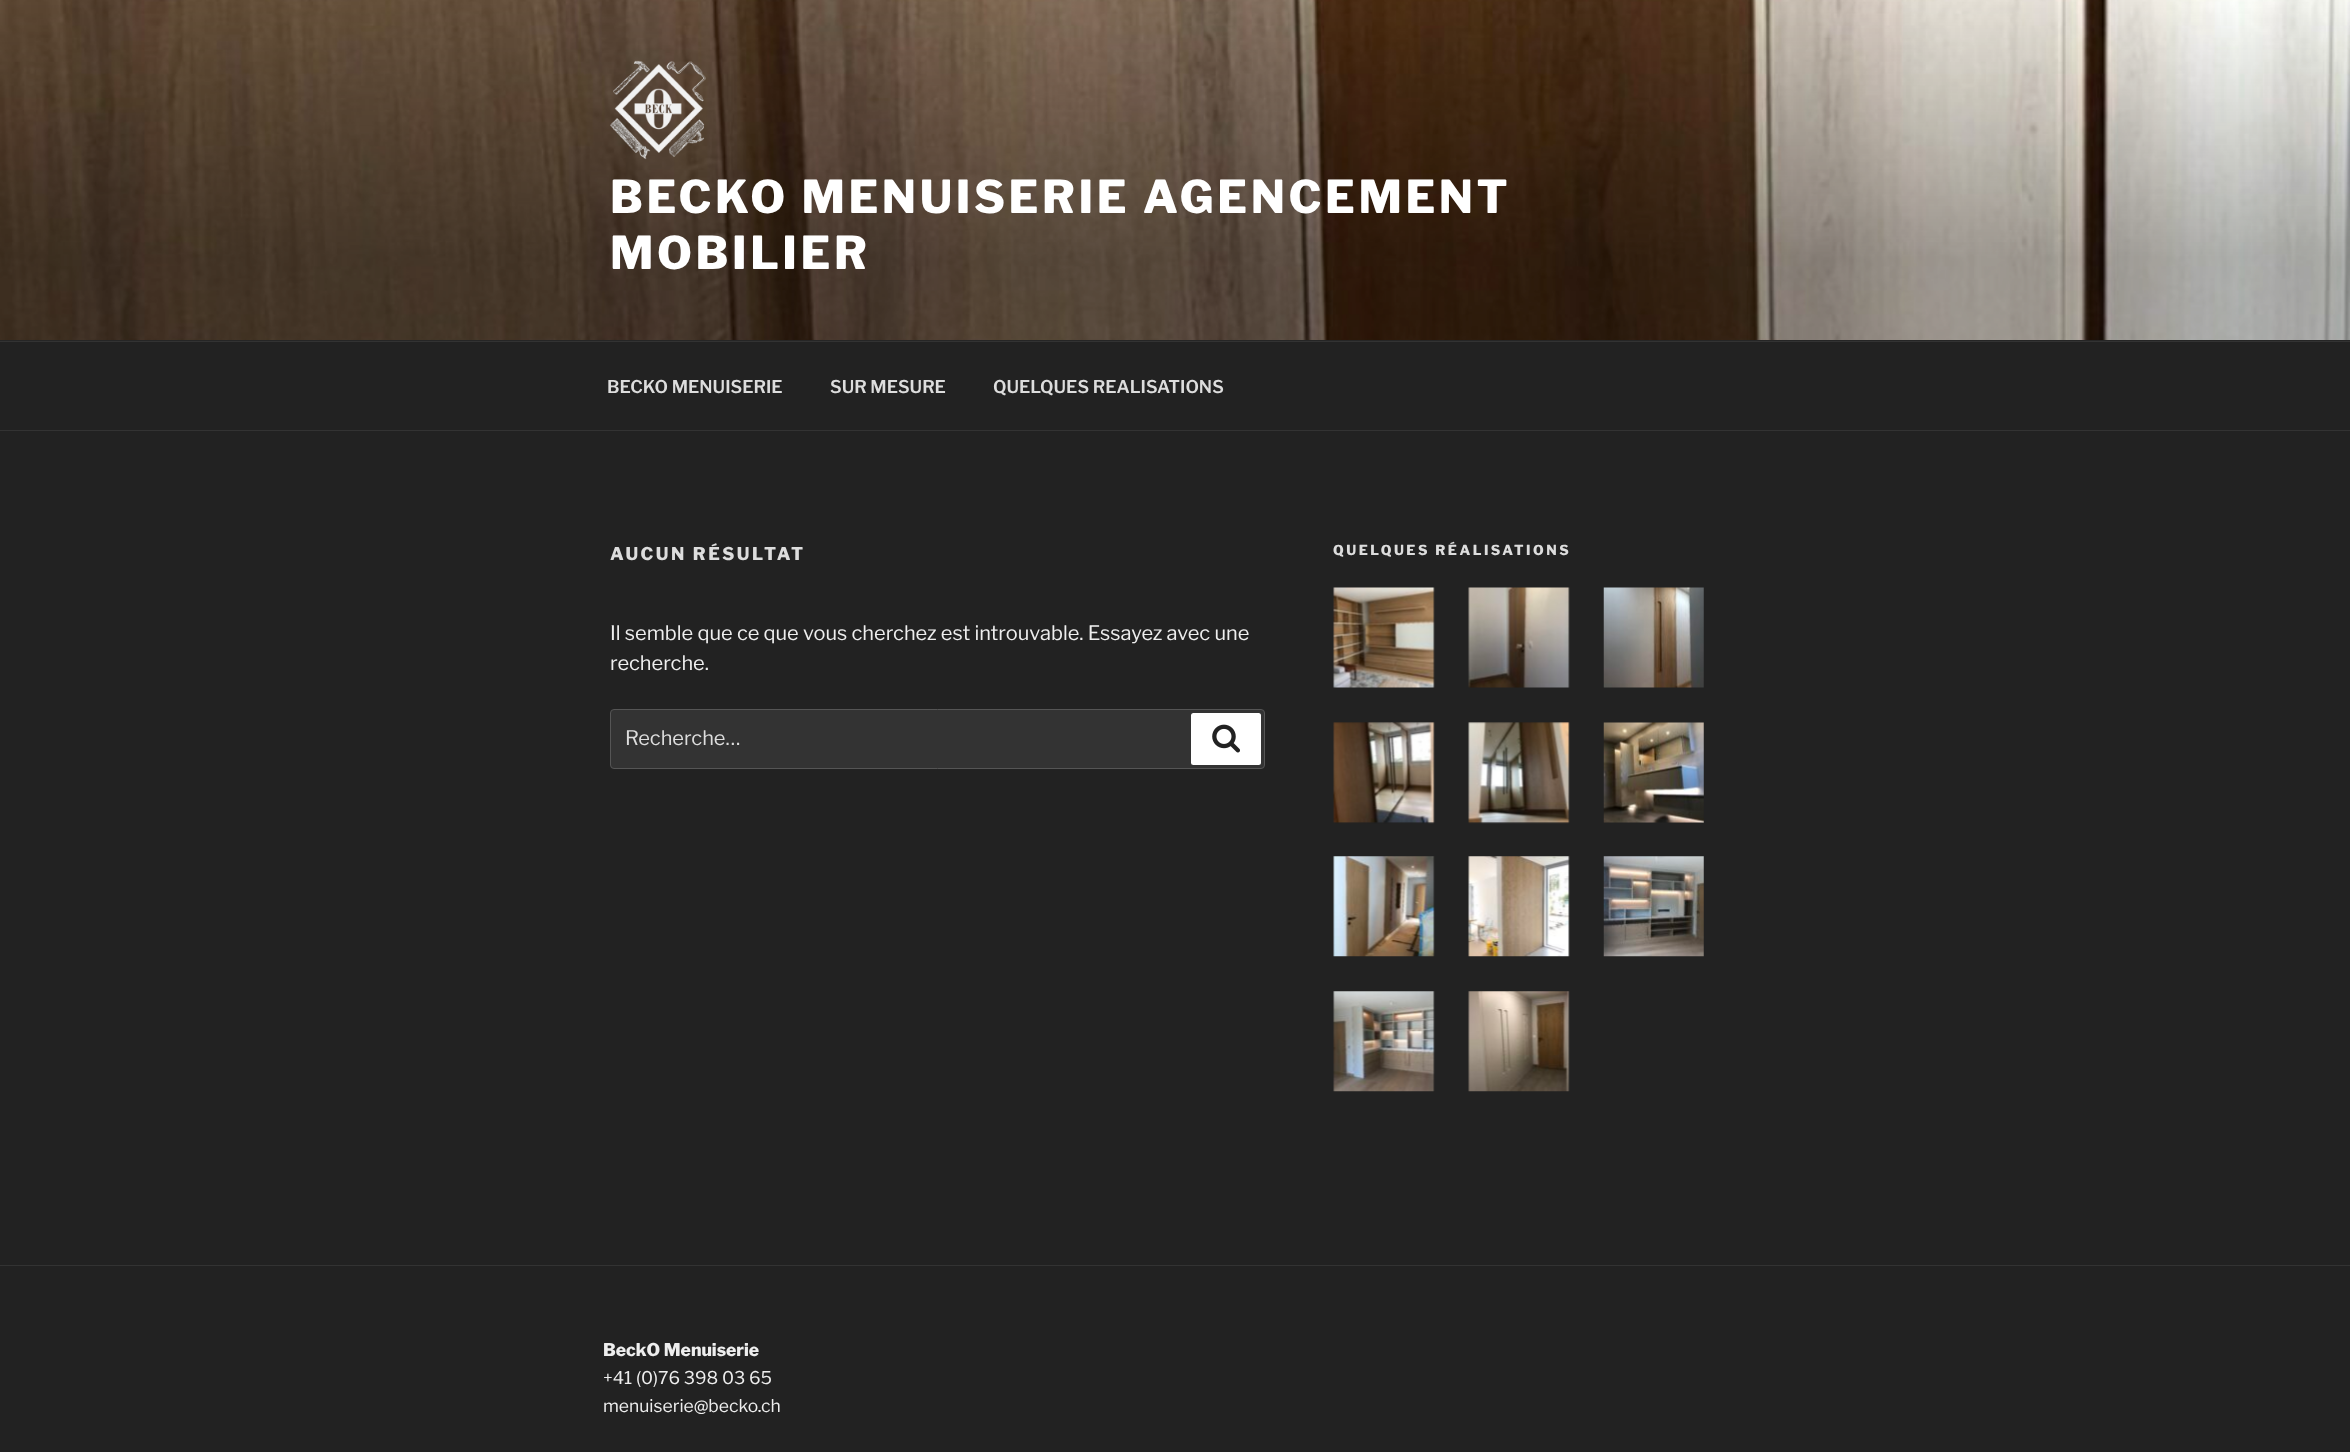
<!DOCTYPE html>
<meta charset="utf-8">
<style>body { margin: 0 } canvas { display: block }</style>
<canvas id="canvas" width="2350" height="1452"></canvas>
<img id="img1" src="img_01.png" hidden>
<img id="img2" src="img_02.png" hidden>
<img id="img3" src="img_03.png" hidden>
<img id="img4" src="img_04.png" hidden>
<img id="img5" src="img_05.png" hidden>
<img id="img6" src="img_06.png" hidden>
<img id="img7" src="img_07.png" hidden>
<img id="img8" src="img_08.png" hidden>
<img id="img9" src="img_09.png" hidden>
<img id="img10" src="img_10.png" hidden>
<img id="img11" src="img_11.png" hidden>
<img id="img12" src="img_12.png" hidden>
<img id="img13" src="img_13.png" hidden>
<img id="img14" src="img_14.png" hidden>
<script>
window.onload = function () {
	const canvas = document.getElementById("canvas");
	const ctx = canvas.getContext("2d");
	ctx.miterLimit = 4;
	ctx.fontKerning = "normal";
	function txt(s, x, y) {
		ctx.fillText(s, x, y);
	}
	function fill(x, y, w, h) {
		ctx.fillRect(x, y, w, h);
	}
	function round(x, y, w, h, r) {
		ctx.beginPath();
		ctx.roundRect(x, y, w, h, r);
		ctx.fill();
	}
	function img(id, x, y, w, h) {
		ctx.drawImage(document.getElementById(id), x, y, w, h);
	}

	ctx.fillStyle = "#222222";
	fill(0, 0, 2350, 1452);
	ctx.fillStyle = "#262626";
	fill(0, 340, 2350, 1);
	img("img1", 0, 0, 2350, 340);
	img("img2", 610, 60, 96, 100);
	ctx.fillStyle = "#333333";
	fill(0, 341, 2350, 1);
	fill(0, 430, 2350, 1);
	ctx.beginPath();
	ctx.roundRect(610.5, 709.5, 654, 59, 3.5);
	ctx.fill();
	ctx.strokeStyle = "#555555";
	ctx.stroke();
	ctx.fillStyle = "#FFFFFF";
	round(1191, 713, 70, 52, 2.5);
	img("img3", 1212, 724, 28, 29);
	img("img4", 1333, 587, 102, 101);
	img("img5", 1468, 587, 102, 101);
	img("img6", 1603, 587, 101, 101);
	img("img7", 1333, 722, 102, 102);
	img("img8", 1468, 722, 102, 102);
	img("img9", 1603, 722, 101, 101);
	img("img10", 1333, 856, 102, 101);
	img("img11", 1468, 856, 102, 101);
	img("img12", 1603, 856, 101, 101);
	img("img13", 1333, 991, 102, 101);
	img("img14", 1468, 991, 102, 101);
	ctx.fillStyle = "#333333";
	fill(0, 1265, 2350, 1);
	ctx.letterSpacing = "3.6px";
	ctx.font = "800 45px Libre Franklin";
	ctx.fillStyle = "#FFFFFF";
	txt("BECKO MENUISERIE AGENCEMENT", 610, 213);
	txt("MOBILIER", 610, 269);
	ctx.letterSpacing = "0px";
	ctx.font = "600 17.5px Libre Franklin";
	ctx.fillStyle = "#DDDDDD";
	txt("BECKO MENUISERIE", 607, 393);
	txt("SUR MESURE", 830, 393);
	txt("QUELQUES REALISATIONS", 993, 393);
	ctx.letterSpacing = "2.5px";
	ctx.font = "800 17.5px Libre Franklin";
	txt("AUCUN RÉSULTAT", 610, 560);
	ctx.letterSpacing = "0px";
	ctx.font = "20px Libre Franklin";
	ctx.fillStyle = "#EEEEEE";
	txt("Il semble que ce que vous cherchez est introuvable. Essayez avec une", 610, 640);
	txt("recherche.", 610, 670);
	ctx.fillStyle = "#DDDDDD";
	txt("Recherche…", 625, 745);
	ctx.letterSpacing = "2.5px";
	ctx.font = "800 13.75px Libre Franklin";
	txt("QUELQUES RÉALISATIONS", 1333, 555);
	ctx.letterSpacing = "0px";
	ctx.font = "800 17.5px Libre Franklin";
	ctx.fillStyle = "#EEEEEE";
	txt("BeckO Menuiserie", 603, 1356);
	ctx.font = "17.5px Libre Franklin";
	txt("+41 (0)76 398 03 65", 603, 1384);
	txt("menuiserie@becko.ch", 603, 1412);
};
</script>
